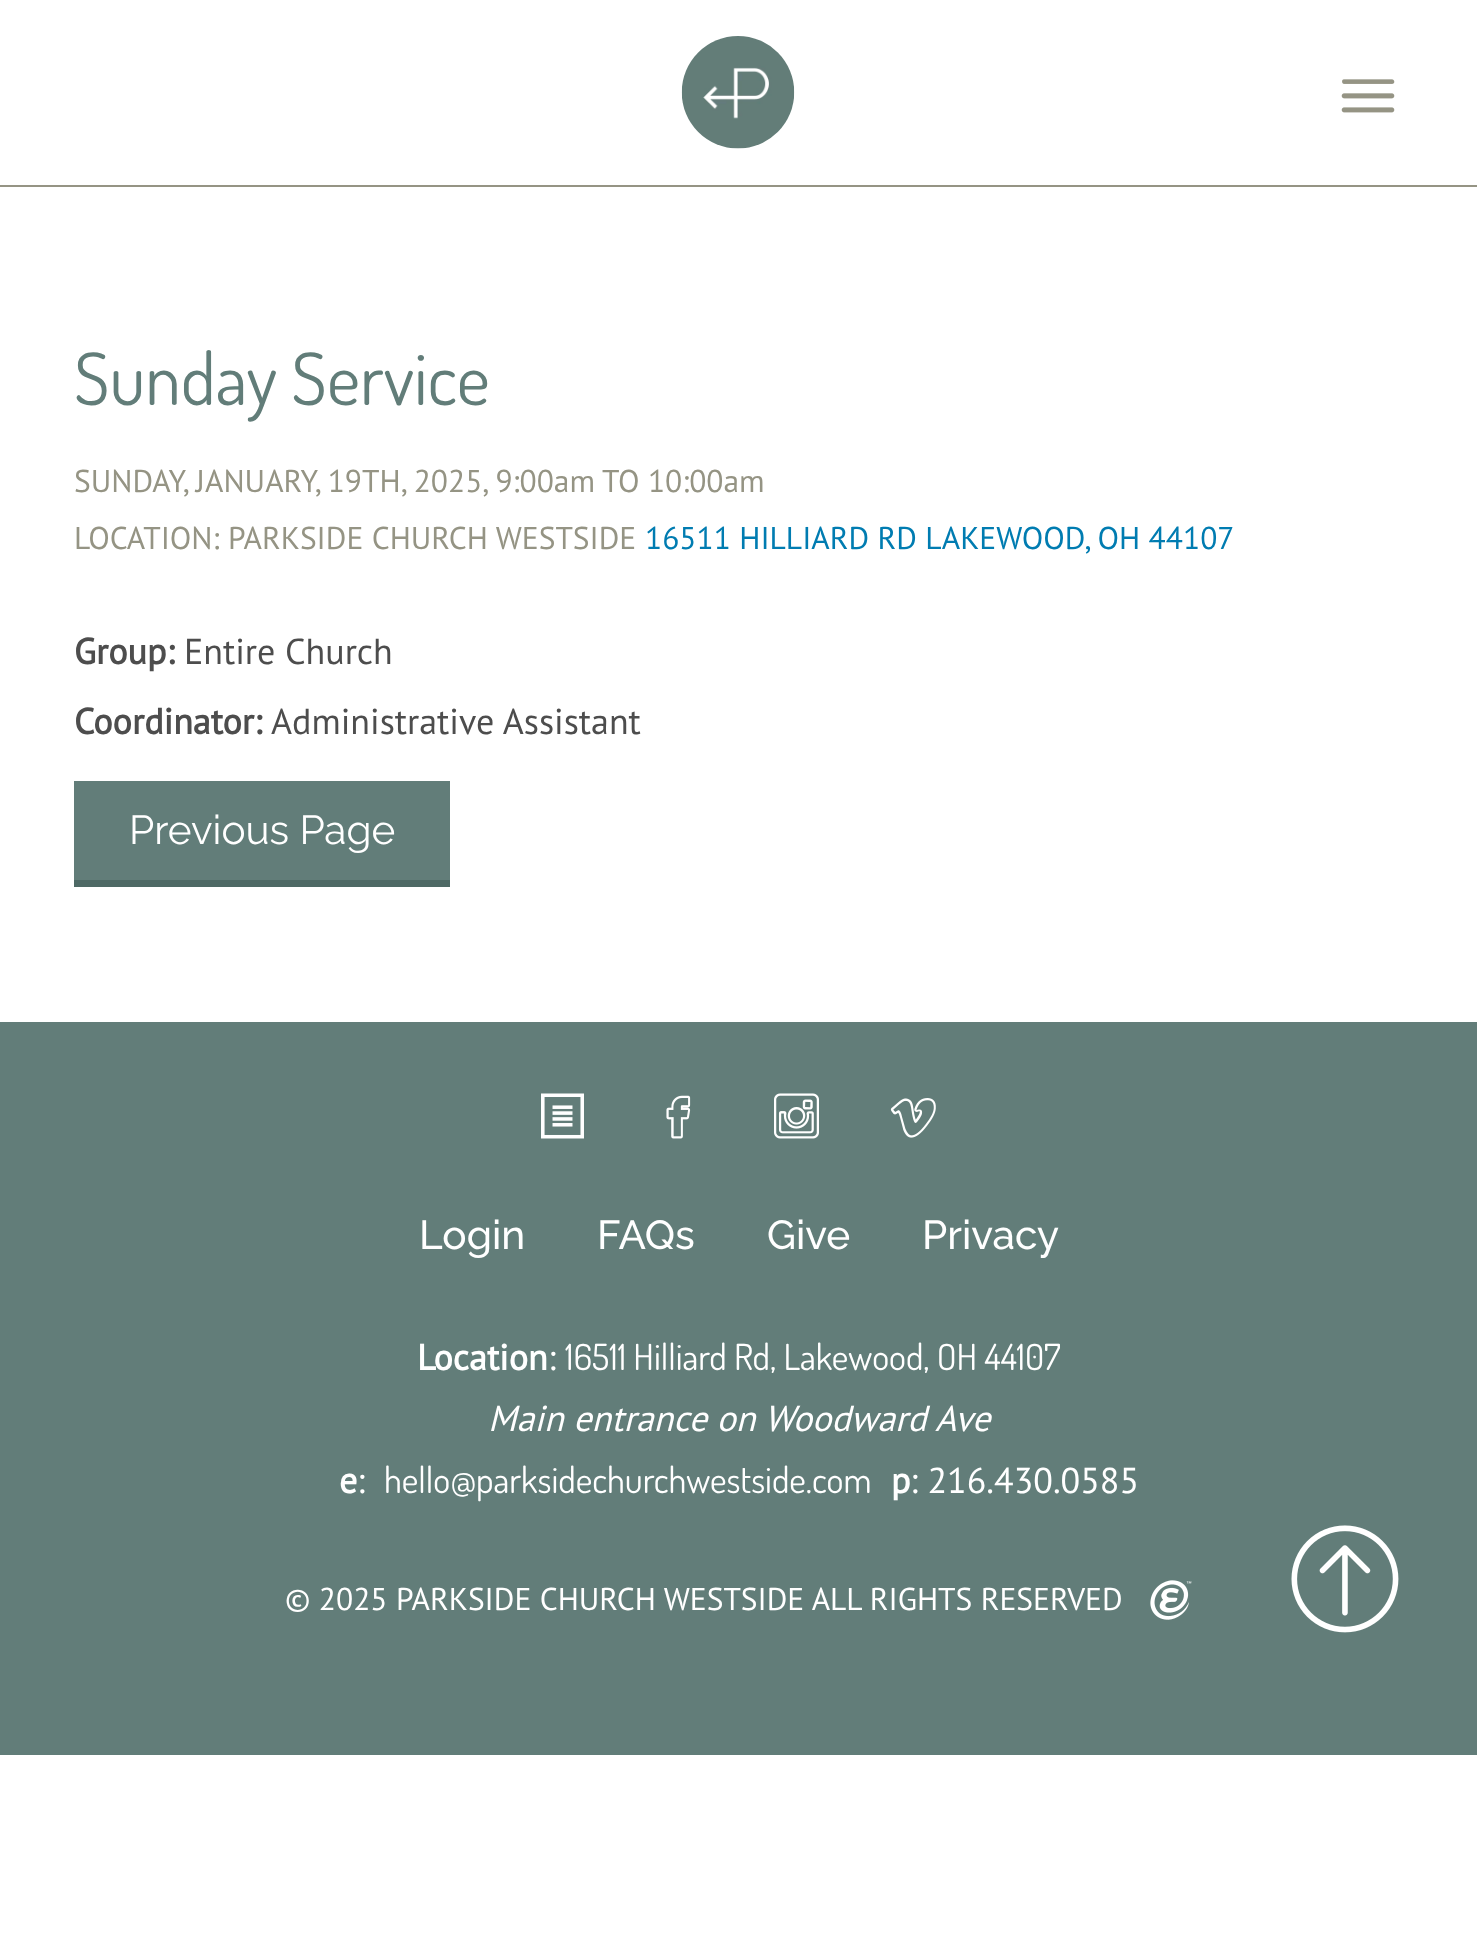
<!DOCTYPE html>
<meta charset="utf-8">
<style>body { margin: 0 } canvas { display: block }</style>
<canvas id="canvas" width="1477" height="1934"></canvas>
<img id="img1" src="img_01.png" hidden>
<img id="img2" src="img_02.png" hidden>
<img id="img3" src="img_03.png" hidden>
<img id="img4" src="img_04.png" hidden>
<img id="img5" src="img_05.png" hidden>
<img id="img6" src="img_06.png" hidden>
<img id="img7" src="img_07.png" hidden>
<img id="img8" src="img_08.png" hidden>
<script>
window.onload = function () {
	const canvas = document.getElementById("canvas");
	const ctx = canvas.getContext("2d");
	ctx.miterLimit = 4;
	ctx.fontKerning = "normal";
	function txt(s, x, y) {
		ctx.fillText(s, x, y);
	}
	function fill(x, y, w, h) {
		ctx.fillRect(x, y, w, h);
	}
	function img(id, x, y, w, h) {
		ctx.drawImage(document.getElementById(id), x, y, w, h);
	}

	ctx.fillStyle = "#FFFFFF";
	fill(0, 0, 1477, 1934);
	ctx.fillStyle = "#959484";
	fill(0, 185, 1477, 2);
	img("img1", 681, 36, 114, 113);
	img("img2", 1341, 79, 54, 34);
	ctx.fillStyle = "#627D79";
	fill(74, 781, 376, 99);
	ctx.fillStyle = "#4E6965";
	fill(74, 880, 376, 7);
	ctx.fillStyle = "#627D79";
	fill(0, 1022, 1477, 733);
	img("img3", 541, 1093, 43, 46);
	img("img4", 666, 1095, 25, 44);
	img("img5", 774, 1093, 45, 46);
	img("img6", 890, 1098, 46, 40);
	img("img7", 1150, 1580, 42, 40);
	img("img8", 1291, 1525, 108, 108);
	ctx.font = "72px Dosis";
	txt("Sunday Service", 74, 405);
	ctx.font = "31.5px PT Sans";
	ctx.fillStyle = "#959484";
	txt("SUNDAY, JANUARY, 19TH, 2025, 9:00am", 74, 492);
	txt("TO 10:00am", 602, 492);
	txt("LOCATION: PARKSIDE CHURCH WESTSIDE", 74, 549);
	ctx.fillStyle = "#007CB1";
	txt("16511 HILLIARD RD LAKEWOOD, OH 44107", 645, 549);
	ctx.font = "bold 36px PT Sans";
	ctx.fillStyle = "#4D4D4D";
	txt("Group:", 74, 664);
	ctx.font = "36px PT Sans";
	txt("Entire Church", 184, 664);
	ctx.font = "bold 36px PT Sans";
	txt("Coordinator:", 74, 734);
	ctx.font = "36px PT Sans";
	txt("Administrative Assistant", 271, 734);
	ctx.font = "40.5px Raleway";
	ctx.fillStyle = "#FFFFFF";
	txt("Previous Page", 129, 844);
	ctx.font = "500 40.5px Raleway";
	txt("Login", 419, 1249);
	txt("FAQs", 597, 1249);
	txt("Give", 767, 1249);
	txt("Privacy", 922, 1249);
	ctx.font = "bold 36px PT Sans";
	txt("Location", 417, 1370);
	ctx.font = "36px PT Sans";
	txt(":", 548, 1370);
	ctx.font = "36px Dosis";
	txt("16511 Hilliard Rd, Lakewood, OH 44107", 565, 1370);
	ctx.font = "italic 36px PT Sans";
	txt("Main entrance on Woodward Ave", 488, 1431);
	ctx.font = "bold 36px PT Sans";
	txt("e", 339, 1493);
	ctx.font = "36px PT Sans";
	txt(":", 357, 1493);
	ctx.font = "36px Dosis";
	txt("hello@parksidechurchwestside.com", 384, 1493);
	ctx.font = "bold 36px PT Sans";
	txt("p", 891, 1493);
	ctx.font = "36px PT Sans";
	txt(": 216.430.0585", 910, 1493);
	ctx.font = "31.5px PT Sans";
	txt("© 2025 PARKSIDE CHURCH WESTSIDE ALL RIGHTS RESERVED", 285, 1610);
};
</script>
